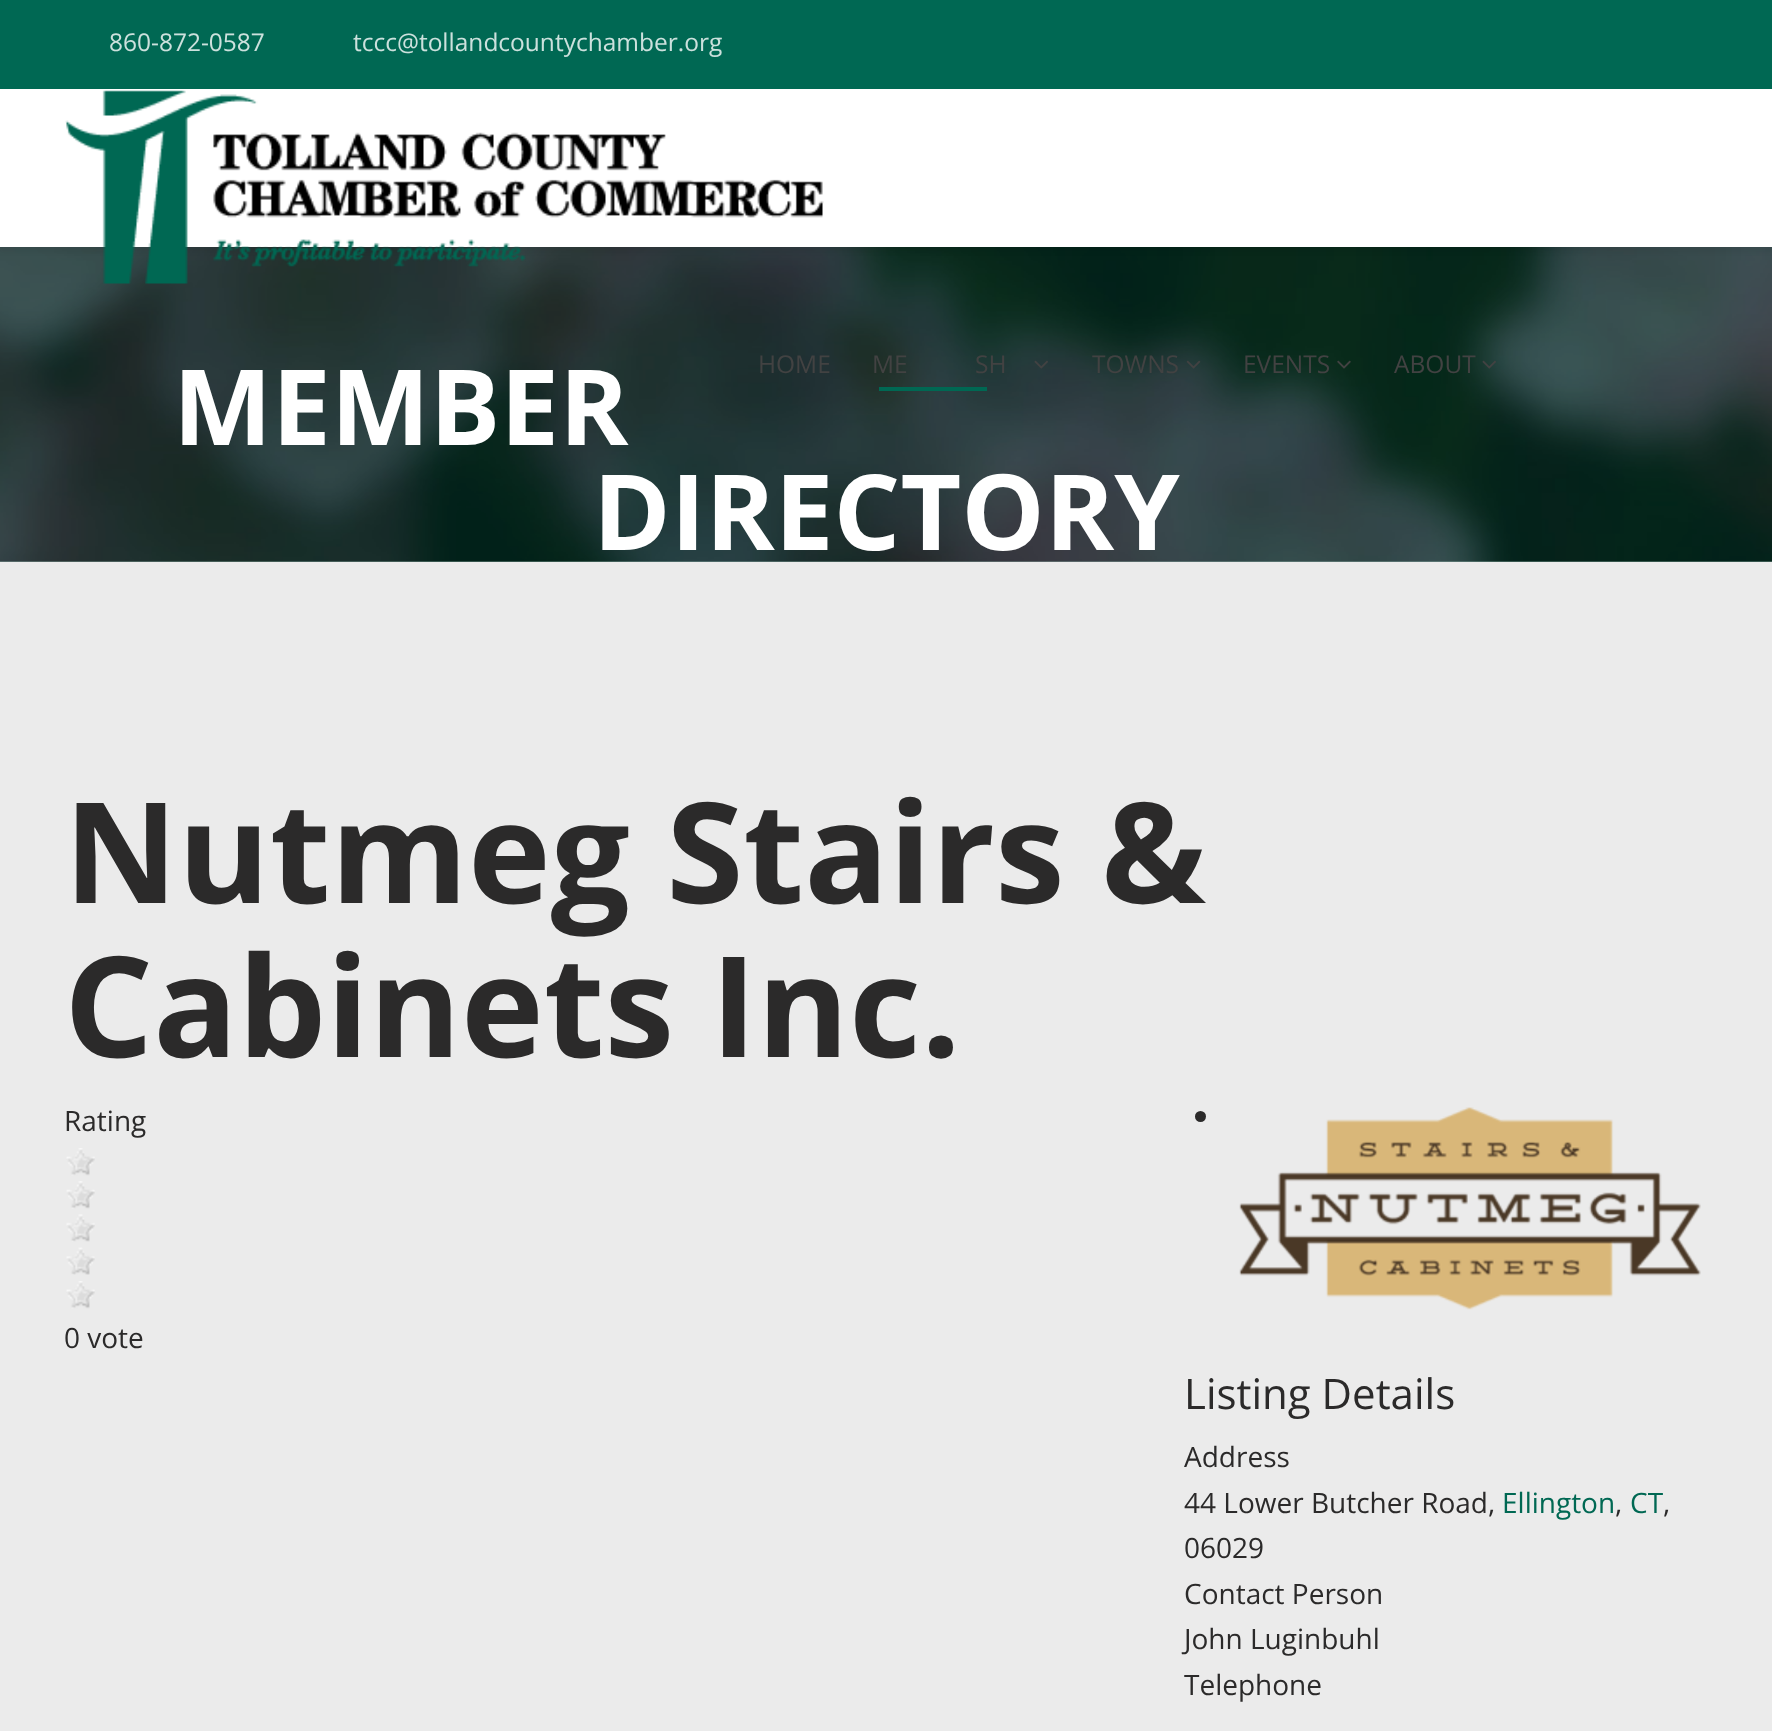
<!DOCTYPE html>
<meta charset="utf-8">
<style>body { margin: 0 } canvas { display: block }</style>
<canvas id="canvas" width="1772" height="1731"></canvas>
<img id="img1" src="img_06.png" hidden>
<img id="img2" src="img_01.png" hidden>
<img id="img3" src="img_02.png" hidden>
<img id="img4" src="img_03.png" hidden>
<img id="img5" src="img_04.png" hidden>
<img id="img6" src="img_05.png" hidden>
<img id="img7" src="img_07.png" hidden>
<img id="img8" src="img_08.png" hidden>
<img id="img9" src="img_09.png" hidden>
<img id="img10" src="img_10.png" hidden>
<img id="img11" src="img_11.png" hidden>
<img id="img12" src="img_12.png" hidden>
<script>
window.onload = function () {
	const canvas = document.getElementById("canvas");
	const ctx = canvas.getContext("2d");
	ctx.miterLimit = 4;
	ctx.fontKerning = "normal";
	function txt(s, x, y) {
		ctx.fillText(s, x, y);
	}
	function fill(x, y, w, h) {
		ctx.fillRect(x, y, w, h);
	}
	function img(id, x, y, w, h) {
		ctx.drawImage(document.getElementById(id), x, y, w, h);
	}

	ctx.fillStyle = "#EBEBEB";
	fill(0, 0, 1772, 1731);
	ctx.fillStyle = "#A5C4BD";
	fill(0, 561, 1772, 1);
	ctx.fillStyle = "#006853";
	fill(0, 0, 1772, 89);
	img("img1", 0, 247, 1772, 315);
	ctx.fillStyle = "rgba(0, 0, 0, 0.05)";
	ctx.filter = "blur(2.5px)";
	ctx.beginPath();
	ctx.rect(0, 95, 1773, 157);
	ctx.fill();
	ctx.filter = "none";
	ctx.fillStyle = "#FFFFFF";
	fill(0, 89, 1772, 158);
	img("img2", 65, 90, 759, 194);
	img("img3", 1034, 360, 14, 9);
	ctx.fillStyle = "#006853";
	fill(879, 387, 108, 4);
	img("img4", 1186, 360, 15, 9);
	img("img5", 1337, 360, 14, 9);
	img("img6", 1482, 360, 14, 9);
	img("img7", 66, 1148, 29, 28);
	img("img8", 66, 1181, 29, 28);
	img("img9", 66, 1214, 29, 28);
	img("img10", 66, 1247, 29, 28);
	img("img11", 66, 1281, 29, 28);
	ctx.fillStyle = "#2B2A2A";
	ctx.beginPath();
	ctx.arc(1200.5, 1116.5, 5.5, 0, Math.PI * 2);
	ctx.fill();
	img("img12", 1239, 1107, 462, 203);
	ctx.font = "24.5px Open Sans";
	ctx.fillStyle = "#CCE1DD";
	txt("860-872-0587", 109, 51);
	txt("tccc@tollandcountychamber.org", 353, 51);
	ctx.fillStyle = "#424242";
	txt("HOME", 758, 373);
	txt("ME", 872, 373);
	txt("SH", 975, 373);
	txt("TOWNS", 1092, 373);
	txt("EVENTS", 1243, 373);
	txt("ABOUT", 1394, 373);
	ctx.font = "bold 105px Open Sans";
	ctx.fillStyle = "#FFFFFF";
	txt("MEMBER", 173, 445);
	txt("DIRECTORY", 593, 550);
	ctx.font = "bold 140px Open Sans";
	ctx.fillStyle = "#2B2A2A";
	txt("Nutmeg Stairs &", 64, 903);
	txt("Cabinets Inc.", 64, 1057);
	ctx.font = "28px Open Sans";
	txt("Rating", 64, 1131);
	txt("0 vote", 64, 1348);
	ctx.font = "42px Open Sans";
	txt("Listing Details", 1184, 1409);
	ctx.font = "28px Open Sans";
	txt("Address", 1184, 1467);
	txt("44 Lower Butcher Road,", 1184, 1513);
	ctx.fillStyle = "#006853";
	txt("Ellington", 1502, 1513);
	ctx.fillStyle = "#2B2A2A";
	txt(",", 1615, 1513);
	ctx.fillStyle = "#006853";
	txt("CT", 1630, 1513);
	ctx.fillStyle = "#2B2A2A";
	txt(",", 1663, 1513);
	txt("06029", 1184, 1558);
	txt("Contact Person", 1184, 1604);
	txt("John Luginbuhl", 1184, 1649);
	txt("Telephone", 1184, 1695);
};
</script>
